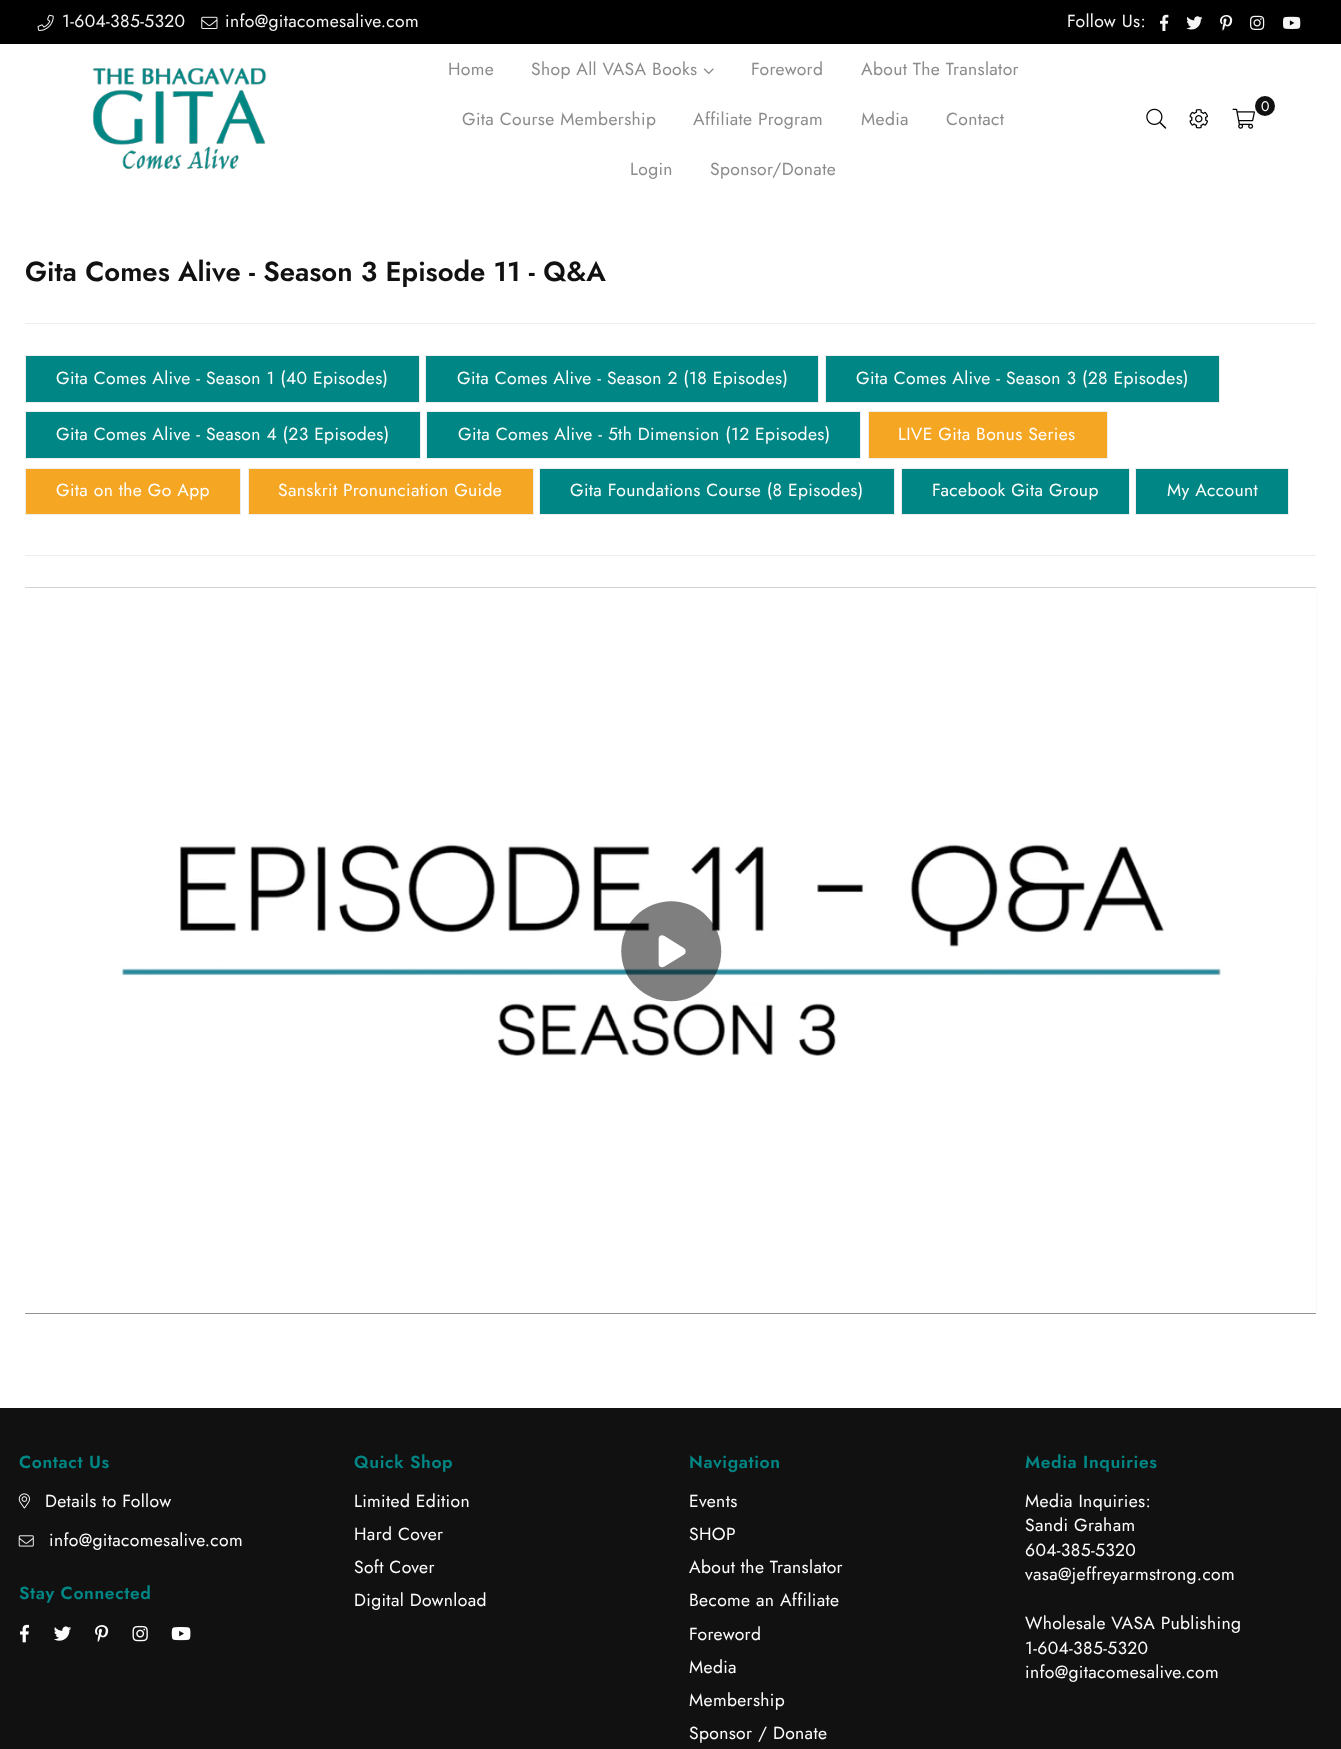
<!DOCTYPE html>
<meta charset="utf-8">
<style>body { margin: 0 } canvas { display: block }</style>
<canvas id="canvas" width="1341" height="1749"></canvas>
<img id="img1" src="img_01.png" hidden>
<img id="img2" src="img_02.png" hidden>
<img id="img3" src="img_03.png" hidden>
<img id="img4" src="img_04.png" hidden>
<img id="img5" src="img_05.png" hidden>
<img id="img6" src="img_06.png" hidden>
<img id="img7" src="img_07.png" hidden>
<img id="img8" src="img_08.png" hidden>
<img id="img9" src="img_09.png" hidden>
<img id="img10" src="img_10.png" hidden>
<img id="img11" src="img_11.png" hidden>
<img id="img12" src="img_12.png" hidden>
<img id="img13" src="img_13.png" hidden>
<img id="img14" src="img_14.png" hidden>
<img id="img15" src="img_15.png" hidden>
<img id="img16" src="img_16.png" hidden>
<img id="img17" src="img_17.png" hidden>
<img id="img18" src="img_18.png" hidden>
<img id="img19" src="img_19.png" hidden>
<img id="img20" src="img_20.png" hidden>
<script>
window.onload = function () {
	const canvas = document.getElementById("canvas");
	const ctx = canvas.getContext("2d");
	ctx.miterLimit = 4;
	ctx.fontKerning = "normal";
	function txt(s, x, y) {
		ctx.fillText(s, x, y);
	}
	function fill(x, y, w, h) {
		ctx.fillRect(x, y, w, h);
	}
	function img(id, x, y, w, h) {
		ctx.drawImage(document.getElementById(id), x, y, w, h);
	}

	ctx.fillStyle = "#FFFFFF";
	fill(0, 0, 1341, 1749);
	ctx.fillStyle = "#000000";
	fill(0, 0, 1341, 44);
	img("img1", 37, 14, 17, 17);
	img("img2", 201, 16, 17, 13);
	img("img3", 1160, 14, 9, 17);
	img("img4", 1186, 16, 17, 14);
	img("img5", 1220, 15, 13, 16);
	img("img6", 1250, 15, 15, 15);
	img("img7", 1283, 16, 18, 13);
	img("img8", 92, 68, 175, 102);
	img("img9", 703, 68, 11, 7);
	ctx.fillStyle = "#111111";
	ctx.beginPath();
	ctx.arc(1265, 106, 10, 0, Math.PI * 2);
	ctx.fill();
	img("img10", 1232, 108, 23, 21);
	img("img11", 1146, 108, 21, 21);
	img("img12", 1189, 109, 19, 20);
	ctx.fillStyle = "#EEEEEE";
	fill(25, 323, 1291, 1);
	ctx.fillStyle = "#008684";
	ctx.beginPath();
	ctx.rect(25.5, 355.5, 394, 47);
	ctx.fill();
	ctx.strokeStyle = "#EEEEEE";
	ctx.stroke();
	ctx.beginPath();
	ctx.rect(425.5, 355.5, 393, 47);
	ctx.fill();
	ctx.stroke();
	ctx.beginPath();
	ctx.rect(825.5, 355.5, 394, 47);
	ctx.fill();
	ctx.stroke();
	ctx.beginPath();
	ctx.rect(25.5, 411.5, 395, 47);
	ctx.fill();
	ctx.stroke();
	ctx.beginPath();
	ctx.rect(426.5, 411.5, 434, 47);
	ctx.fill();
	ctx.stroke();
	ctx.fillStyle = "#F5A623";
	ctx.beginPath();
	ctx.rect(868.5, 411.5, 239, 47);
	ctx.fill();
	ctx.stroke();
	ctx.beginPath();
	ctx.rect(25.5, 468.5, 215, 46);
	ctx.fill();
	ctx.stroke();
	ctx.beginPath();
	ctx.rect(248.5, 468.5, 285, 46);
	ctx.fill();
	ctx.stroke();
	ctx.fillStyle = "#008684";
	ctx.beginPath();
	ctx.rect(539.5, 468.5, 355, 46);
	ctx.fill();
	ctx.stroke();
	ctx.beginPath();
	ctx.rect(901.5, 468.5, 228, 46);
	ctx.fill();
	ctx.stroke();
	ctx.beginPath();
	ctx.rect(1135.5, 468.5, 153, 46);
	ctx.fill();
	ctx.stroke();
	ctx.fillStyle = "#EEEEEE";
	fill(25, 555, 1291, 1);
	img("img13", 25, 587, 1292, 727);
	ctx.fillStyle = "#111111";
	fill(0, 1408, 1341, 341);
	img("img14", 18, 1493, 12, 16);
	img("img15", 18, 1535, 16, 12);
	img("img16", 20, 1624, 10, 19);
	img("img17", 54, 1626, 18, 15);
	img("img18", 95, 1625, 14, 17);
	img("img19", 132, 1625, 16, 17);
	img("img20", 171, 1627, 20, 14);
	ctx.letterSpacing = "0.35px";
	ctx.font = "17.5px Jost";
	ctx.fillStyle = "#F5F5F5";
	txt("1-604-385-5320", 62, 27);
	txt("info@gitacomesalive.com", 225, 27);
	txt("Follow Us:", 1067, 27);
	ctx.fillStyle = "#8B8B8B";
	txt("Home", 448, 75);
	txt("Shop All VASA Books", 531, 75);
	txt("Foreword", 751, 75);
	txt("About The Translator", 861, 75);
	txt("Gita Course Membership", 462, 125);
	txt("Affiliate Program", 693, 125);
	txt("Media", 861, 125);
	txt("Contact", 946, 125);
	txt("Login", 630, 175);
	txt("Sponsor/Donate", 710, 175);
	ctx.font = "14px Jost";
	ctx.fillStyle = "#FFFFFF";
	txt("0", 1261, 111);
	ctx.letterSpacing = "0px";
	ctx.font = "600 27.5px Jost";
	ctx.fillStyle = "#111111";
	txt("Gita Comes Alive - Season 3 Episode 11 - Q&A", 25, 281);
	ctx.letterSpacing = "0.35px";
	ctx.font = "17.5px Jost";
	ctx.fillStyle = "#FFFFFF";
	txt("Gita Comes Alive - Season 1 (40 Episodes)", 56, 384);
	txt("Gita Comes Alive - Season 2 (18 Episodes)", 457, 384);
	txt("Gita Comes Alive - Season 3 (28 Episodes)", 856, 384);
	txt("Gita Comes Alive - Season 4 (23 Episodes)", 56, 440);
	txt("Gita Comes Alive - 5th Dimension (12 Episodes)", 458, 440);
	txt("LIVE Gita Bonus Series", 898, 440);
	txt("Gita on the Go App", 56, 496);
	txt("Sanskrit Pronunciation Guide", 278, 496);
	txt("Gita Foundations Course (8 Episodes)", 570, 496);
	txt("Facebook Gita Group", 932, 496);
	txt("My Account", 1167, 496);
	ctx.letterSpacing = "0.6px";
	ctx.font = "600 17.5px Jost";
	ctx.fillStyle = "#008684";
	txt("Contact Us", 19, 1468);
	ctx.letterSpacing = "0.35px";
	ctx.font = "17.5px Jost";
	ctx.fillStyle = "#FFFFFF";
	txt("Details to Follow", 45, 1507);
	txt("info@gitacomesalive.com", 49, 1546);
	ctx.letterSpacing = "0.6px";
	ctx.font = "600 17.5px Jost";
	ctx.fillStyle = "#008684";
	txt("Stay Connected", 19, 1599);
	txt("Quick Shop", 354, 1468);
	ctx.letterSpacing = "0.35px";
	ctx.font = "17.5px Jost";
	ctx.fillStyle = "#FFFFFF";
	txt("Limited Edition", 354, 1507);
	txt("Hard Cover", 354, 1540);
	txt("Soft Cover", 354, 1573);
	txt("Digital Download", 354, 1606);
	ctx.letterSpacing = "0.6px";
	ctx.font = "600 17.5px Jost";
	ctx.fillStyle = "#008684";
	txt("Navigation", 689, 1468);
	ctx.letterSpacing = "0.35px";
	ctx.font = "17.5px Jost";
	ctx.fillStyle = "#FFFFFF";
	txt("Events", 689, 1507);
	txt("SHOP", 689, 1540);
	txt("About the Translator", 689, 1573);
	txt("Become an Affiliate", 689, 1606);
	txt("Foreword", 689, 1640);
	txt("Media", 689, 1673);
	txt("Membership", 689, 1706);
	txt("Sponsor / Donate", 689, 1739);
	ctx.letterSpacing = "0.6px";
	ctx.font = "600 17.5px Jost";
	ctx.fillStyle = "#008684";
	txt("Media Inquiries", 1025, 1468);
	ctx.letterSpacing = "0.35px";
	ctx.font = "17.5px Jost";
	ctx.fillStyle = "#FFFFFF";
	txt("Media Inquiries:", 1025, 1507);
	txt("Sandi Graham", 1025, 1531);
	txt("604-385-5320", 1025, 1556);
	txt("vasa@jeffreyarmstrong.com", 1025, 1580);
	txt("Wholesale VASA Publishing", 1025, 1629);
	txt("1-604-385-5320", 1025, 1654);
	txt("info@gitacomesalive.com", 1025, 1678);
};
</script>
